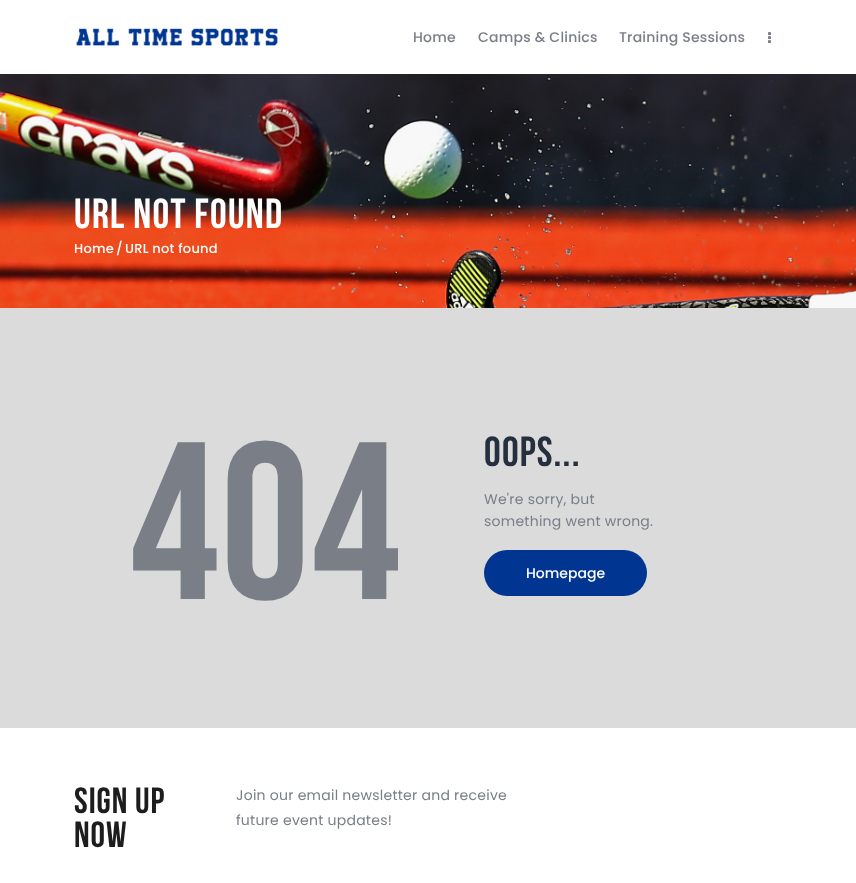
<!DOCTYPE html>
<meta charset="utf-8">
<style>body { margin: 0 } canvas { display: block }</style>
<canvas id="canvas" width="856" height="883"></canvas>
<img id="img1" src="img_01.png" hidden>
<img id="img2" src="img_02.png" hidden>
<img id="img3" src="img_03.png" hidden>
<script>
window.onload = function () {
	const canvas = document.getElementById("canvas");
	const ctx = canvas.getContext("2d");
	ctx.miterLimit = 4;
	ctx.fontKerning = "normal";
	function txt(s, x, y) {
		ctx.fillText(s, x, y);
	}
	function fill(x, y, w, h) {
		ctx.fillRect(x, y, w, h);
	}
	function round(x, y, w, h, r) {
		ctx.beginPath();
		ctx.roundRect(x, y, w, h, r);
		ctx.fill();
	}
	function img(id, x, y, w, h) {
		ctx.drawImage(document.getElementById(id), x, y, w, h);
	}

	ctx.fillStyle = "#DBDBDB";
	fill(0, 0, 856, 883);
	ctx.fillStyle = "#FFFFFF";
	fill(0, 0, 856, 74);
	img("img1", 76, 28, 202, 18);
	img("img2", 768, 32, 3, 12);
	img("img3", 0, 74, 856, 234);
	ctx.fillStyle = "#003591";
	round(484, 550, 163, 46, 23);
	ctx.fillStyle = "#FFFFFF";
	fill(0, 728, 856, 155);
	ctx.letterSpacing = "0.2px";
	ctx.font = "500 14px Poppins";
	ctx.fillStyle = "#797E87";
	txt("Home", 413, 42);
	txt("Camps & Clinics", 478, 42);
	txt("Training Sessions", 619, 42);
	ctx.letterSpacing = "1.25px";
	ctx.font = "bold 42px Bebas Neue";
	ctx.fillStyle = "#FFFFFF";
	txt("URL not found", 74, 228);
	ctx.letterSpacing = "0.25px";
	ctx.font = "500 13px Poppins";
	txt("Home", 74, 253);
	txt("/", 116, 253);
	txt("URL not found", 125, 253);
	ctx.letterSpacing = "2px";
	ctx.font = "bold 224px Bebas Neue";
	ctx.fillStyle = "#797E87";
	txt("404", 130, 599);
	ctx.letterSpacing = "1.25px";
	ctx.font = "bold 42px Bebas Neue";
	ctx.fillStyle = "#262F3E";
	txt("Oops...", 484, 466);
	ctx.letterSpacing = "0.25px";
	ctx.font = "14px Poppins";
	ctx.fillStyle = "#797E87";
	txt("We're sorry, but", 484, 504);
	txt("something went wrong.", 484, 526);
	ctx.letterSpacing = "0px";
	ctx.font = "500 14px Poppins";
	ctx.fillStyle = "#FFFFFF";
	txt("Homepage", 526, 578);
	ctx.letterSpacing = "1px";
	ctx.font = "bold 36.5px Bebas Neue";
	ctx.fillStyle = "#1D1D1D";
	txt("Sign Up", 74, 813);
	txt("Now", 74, 847);
	ctx.letterSpacing = "0.25px";
	ctx.font = "14px Poppins";
	ctx.fillStyle = "#797E87";
	txt("Join our email newsletter and receive", 236, 800);
	txt("future event updates!", 236, 825);
};
</script>
